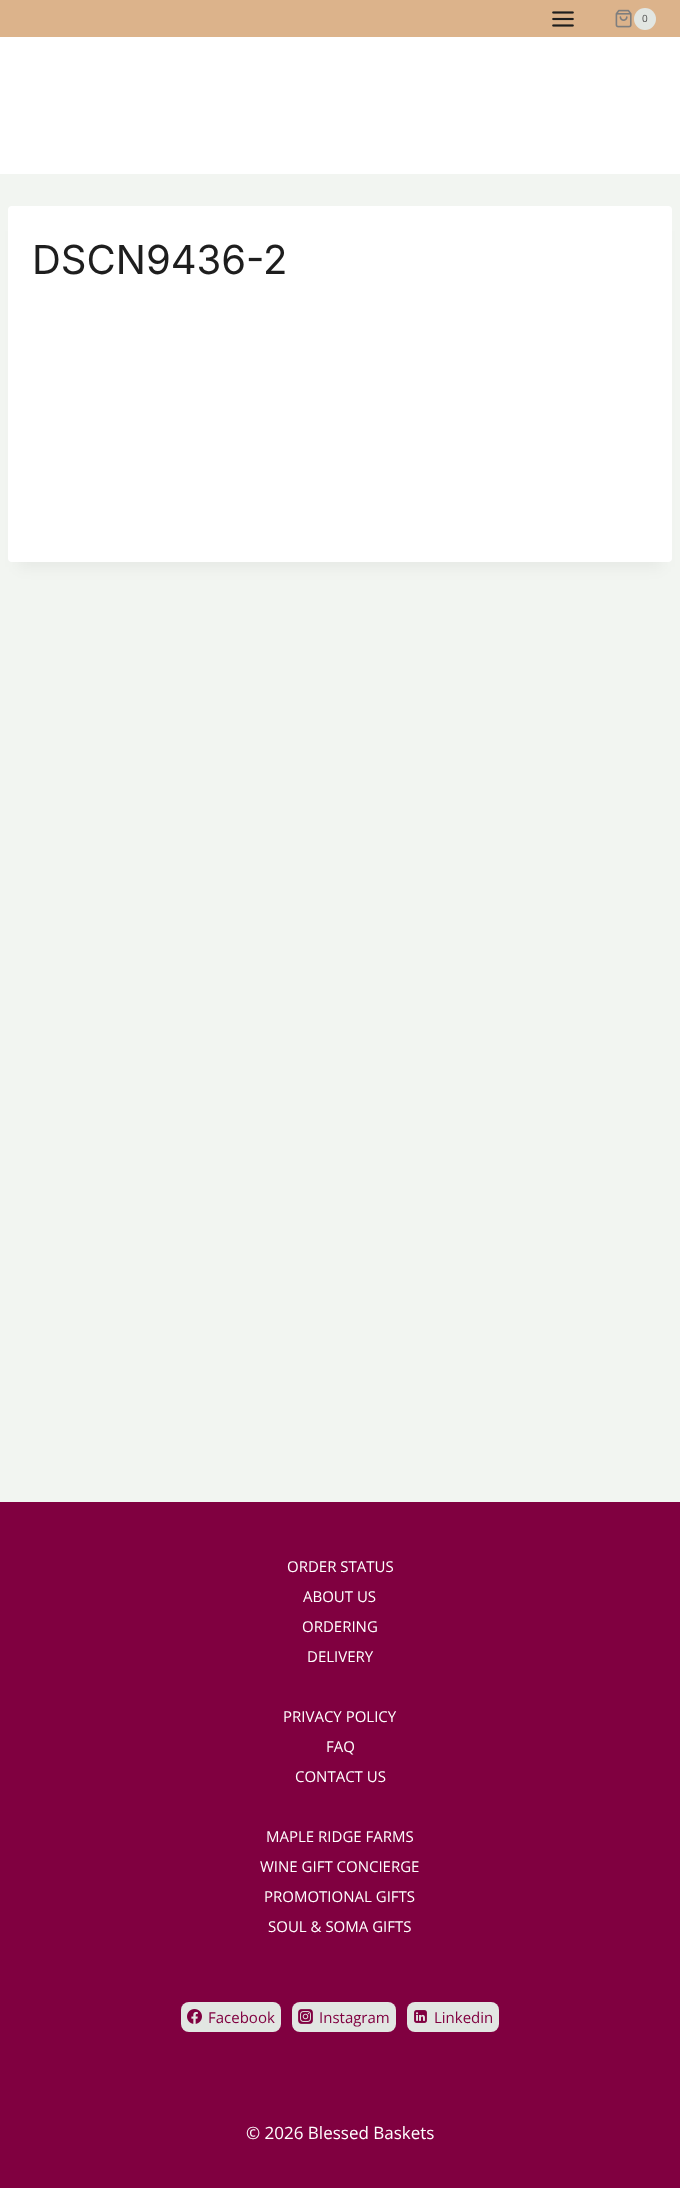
<!DOCTYPE html>
<meta charset="utf-8">
<style>body { margin: 0 } canvas { display: block }</style>
<canvas id="canvas" width="680" height="2188"></canvas>
<img id="img1" src="img_01.png" hidden>
<img id="img2" src="img_02.png" hidden>
<img id="img3" src="img_03.png" hidden>
<img id="img4" src="img_04.png" hidden>
<img id="img5" src="img_05.png" hidden>
<script>
window.onload = function () {
	const canvas = document.getElementById("canvas");
	const ctx = canvas.getContext("2d");
	ctx.miterLimit = 4;
	ctx.fontKerning = "normal";
	function txt(s, x, y) {
		ctx.fillText(s, x, y);
	}
	function fill(x, y, w, h) {
		ctx.fillRect(x, y, w, h);
	}
	function round(x, y, w, h, r) {
		ctx.beginPath();
		ctx.roundRect(x, y, w, h, r);
		ctx.fill();
	}
	function img(id, x, y, w, h) {
		ctx.drawImage(document.getElementById(id), x, y, w, h);
	}

	ctx.fillStyle = "#F2F5F1";
	fill(0, 0, 680, 2188);
	ctx.fillStyle = "#FFFFFF";
	fill(0, 37, 680, 137);
	ctx.fillStyle = "#DCB38B";
	fill(0, 0, 680, 37);
	img("img1", 552, 11, 22, 16);
	img("img2", 615, 9, 17, 19);
	ctx.fillStyle = "#E2E6E2";
	ctx.beginPath();
	ctx.arc(645, 19, 11, 0, Math.PI * 2);
	ctx.fill();
	ctx.fillStyle = "rgba(0, 0, 0, 0.05)";
	ctx.filter = "blur(7.5px)";
	ctx.beginPath();
	ctx.rect(18, 231, 644, 336);
	ctx.fill();
	ctx.filter = "none";
	ctx.fillStyle = "#FFFFFF";
	round(8, 206, 664, 356, 4);
	ctx.fillStyle = "#800040";
	fill(0, 1502, 680, 686);
	ctx.fillStyle = "#E2E6E2";
	round(181, 2002, 100, 30, 8);
	img("img3", 187, 2009, 15, 15);
	round(292, 2002, 104, 30, 8);
	img("img4", 298, 2009, 15, 15);
	round(407, 2002, 92, 30, 8);
	img("img5", 414, 2010, 13, 13);
	ctx.font = "10px Open Sans";
	ctx.fillStyle = "#4F4F4F";
	txt("0", 642, 22);
	ctx.font = "40px Inter";
	ctx.fillStyle = "#1E1E1E";
	txt("DSCN9436-2", 32, 274);
	ctx.font = "15px Open Sans";
	ctx.fillStyle = "#FFFFFF";
	txt("ORDER STATUS", 287, 1572);
	txt("ABOUT US", 303, 1602);
	txt("ORDERING", 302, 1632);
	txt("DELIVERY", 307, 1662);
	txt("PRIVACY POLICY", 283, 1722);
	txt("FAQ", 326, 1752);
	txt("CONTACT US", 295, 1782);
	txt("MAPLE RIDGE FARMS", 266, 1842);
	txt("WINE GIFT CONCIERGE", 260, 1872);
	txt("PROMOTIONAL GIFTS", 264, 1902);
	txt("SOUL & SOMA GIFTS", 268, 1932);
	ctx.fillStyle = "#800040";
	txt("Facebook", 208, 2023);
	txt("Instagram", 319, 2023);
	txt("Linkedin", 434, 2023);
	ctx.font = "17px Open Sans";
	ctx.fillStyle = "#FFFFFF";
	txt("© 2026 Blessed Baskets", 246, 2139);
};
</script>
